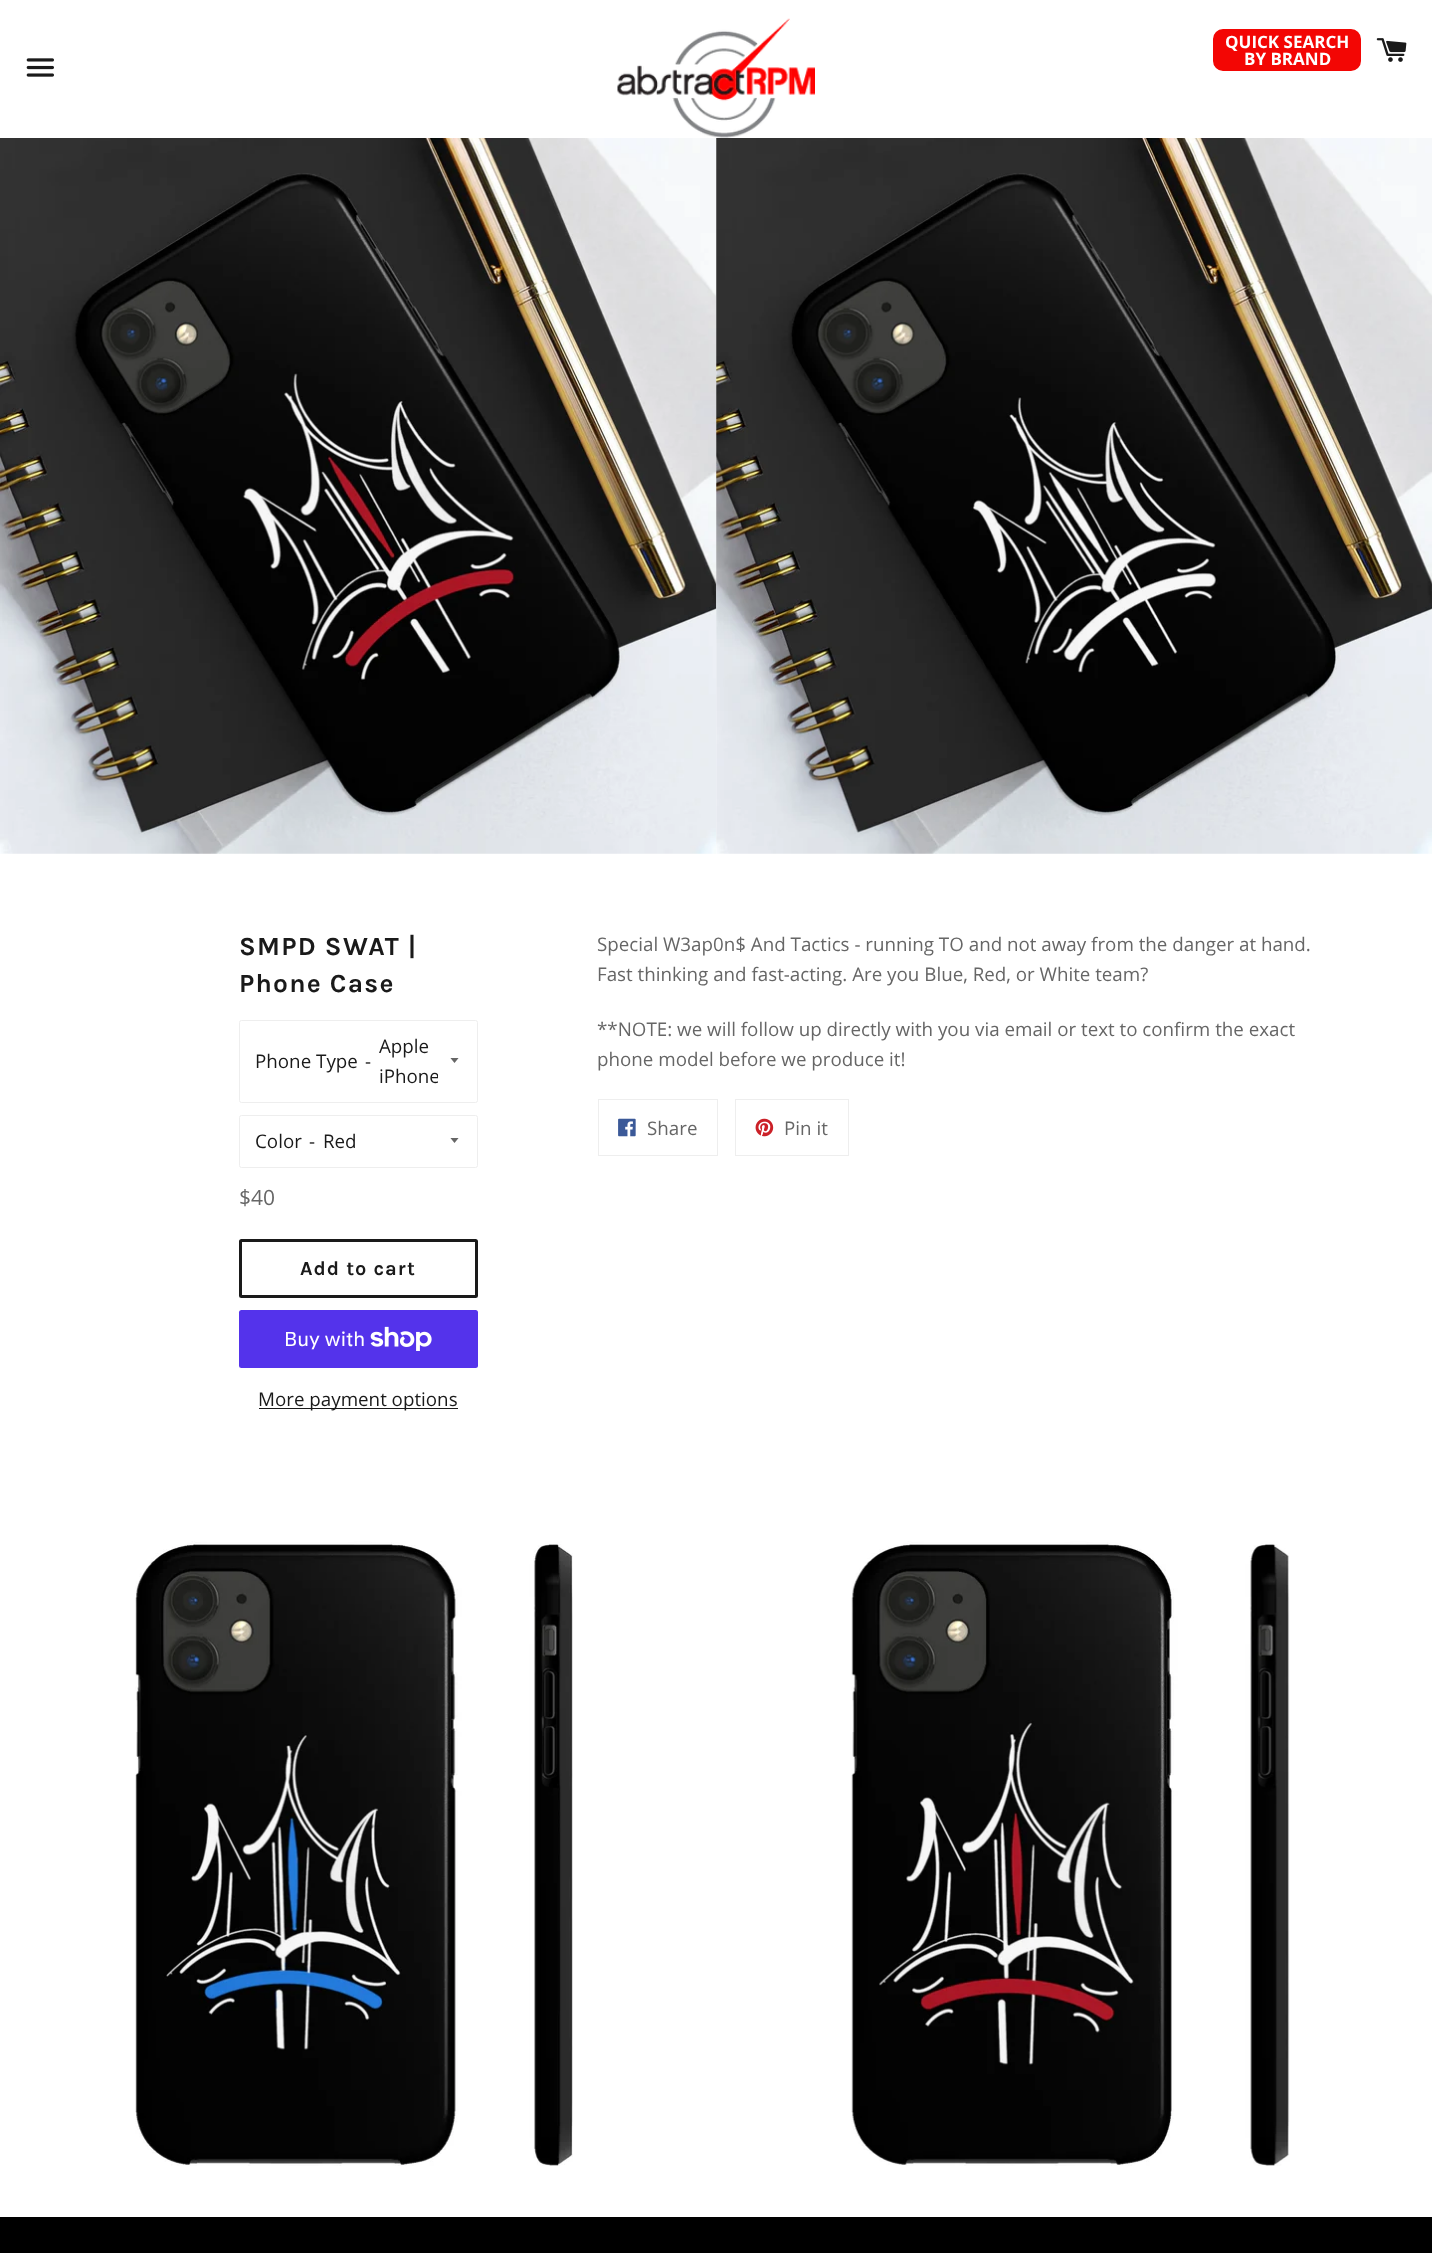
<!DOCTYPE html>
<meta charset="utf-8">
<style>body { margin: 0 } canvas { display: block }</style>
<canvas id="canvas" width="1432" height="2253"></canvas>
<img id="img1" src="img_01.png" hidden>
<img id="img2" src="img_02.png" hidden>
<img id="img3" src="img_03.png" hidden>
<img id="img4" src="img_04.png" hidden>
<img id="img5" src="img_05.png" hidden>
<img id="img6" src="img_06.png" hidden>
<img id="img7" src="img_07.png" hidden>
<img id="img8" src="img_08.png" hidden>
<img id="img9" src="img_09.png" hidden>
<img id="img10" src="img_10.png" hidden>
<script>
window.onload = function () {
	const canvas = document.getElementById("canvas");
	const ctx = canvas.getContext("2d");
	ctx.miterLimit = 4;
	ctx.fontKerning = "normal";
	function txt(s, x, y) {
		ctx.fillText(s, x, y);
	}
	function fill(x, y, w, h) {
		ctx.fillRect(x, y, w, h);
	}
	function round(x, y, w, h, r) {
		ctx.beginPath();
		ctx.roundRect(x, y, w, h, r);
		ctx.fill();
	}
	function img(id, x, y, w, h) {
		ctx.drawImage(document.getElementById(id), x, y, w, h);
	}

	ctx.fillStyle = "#FFFFFF";
	fill(0, 0, 1432, 2253);
	img("img1", 617, 18, 198, 120);
	ctx.fillStyle = "#F30604";
	ctx.beginPath();
	ctx.roundRect(1211.5, 27.5, 151, 45, 11.5);
	ctx.fill();
	ctx.strokeStyle = "#FFFFFF";
	ctx.lineWidth = 3;
	ctx.stroke();
	img("img2", 1376, 38, 31, 24);
	img("img3", 26, 58, 28, 19);
	img("img4", 0, 138, 717, 716);
	img("img5", 716, 138, 716, 716);
	ctx.beginPath();
	ctx.roundRect(239.5, 1020.5, 238, 82, 2);
	ctx.strokeStyle = "#EEEEEE";
	ctx.lineWidth = 1;
	ctx.stroke();
	ctx.save();
	ctx.beginPath();
	ctx.rect(450, 1058, 10, 6);
	ctx.clip();
	ctx.fillStyle = "#666666";
	ctx.beginPath();
	ctx.moveTo(450, 1057.5);
	ctx.lineTo(454.5, 1063);
	ctx.lineTo(459, 1057.5);
	ctx.closePath();
	ctx.fill();
	ctx.restore();
	ctx.beginPath();
	ctx.roundRect(239.5, 1115.5, 238, 52, 2);
	ctx.stroke();
	ctx.save();
	ctx.beginPath();
	ctx.rect(450, 1138, 10, 6);
	ctx.clip();
	ctx.fillStyle = "#666666";
	ctx.beginPath();
	ctx.moveTo(450, 1137.5);
	ctx.lineTo(454.5, 1143);
	ctx.lineTo(459, 1137.5);
	ctx.closePath();
	ctx.fill();
	ctx.restore();
	ctx.beginPath();
	ctx.roundRect(240.5, 1240.5, 236, 56, 1);
	ctx.strokeStyle = "#1A1A1A";
	ctx.lineWidth = 3;
	ctx.stroke();
	ctx.fillStyle = "#5433EB";
	round(239, 1310, 239, 58, 2.5);
	img("img6", 370, 1326, 62, 25);
	ctx.fillStyle = "#1A1A1A";
	fill(259, 1408, 199, 1);
	ctx.strokeStyle = "#EEEEEE";
	ctx.lineWidth = 1;
	ctx.strokeRect(598.5, 1099.5, 119, 56);
	img("img7", 618, 1118, 18, 19);
	ctx.strokeRect(735.5, 1099.5, 113, 56);
	img("img8", 755, 1118, 19, 19);
	img("img9", 135, 1541, 438, 625);
	img("img10", 851, 1541, 439, 625);
	ctx.fillStyle = "#000000";
	fill(0, 2217, 1432, 36);
	ctx.font = "bold 17px Open Sans";
	ctx.fillStyle = "#FFFFFF";
	txt("QUICK SEARCH", 1225, 48);
	txt("BY BRAND", 1244, 65);
	ctx.letterSpacing = "1.25px";
	ctx.font = "bold 26.25px Karla";
	ctx.fillStyle = "#1A1A1A";
	txt("SMPD SWAT |", 239, 955);
	txt("Phone Case", 239, 992);
	ctx.letterSpacing = "0px";
	ctx.font = "18.75px Open Sans";
	txt("Phone Type", 255, 1068);
	txt("-", 365, 1068);
	txt("Apple", 379, 1053);
	ctx.save();
	ctx.beginPath();
	ctx.rect(379, 1031, 59, 60);
	ctx.clip();
	txt("iPhone", 379, 1083);
	ctx.restore();
	txt("Color", 255, 1148);
	txt("-", 309, 1148);
	txt("Red", 323, 1148);
	ctx.font = "21px Open Sans";
	ctx.fillStyle = "#666666";
	txt("$40", 239, 1205);
	ctx.letterSpacing = "1px";
	ctx.font = "bold 20px Karla";
	ctx.fillStyle = "#1A1A1A";
	txt("Add to cart", 300, 1275);
	ctx.letterSpacing = "0px";
	ctx.font = "20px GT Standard";
	ctx.fillStyle = "#FFFFFF";
	txt("Buy with", 284, 1346);
	ctx.font = "18.75px Open Sans";
	ctx.fillStyle = "#1A1A1A";
	txt("More payment options", 258, 1406);
	ctx.fillStyle = "#666666";
	txt("Special W3ap0n$ And Tactics - running TO and not away from the danger at hand.", 597, 951);
	txt("Fast thinking and fast-acting. Are you Blue, Red, or White team?", 597, 981);
	txt("**NOTE: we will follow up directly with you via email or text to confirm the exact", 597, 1036);
	txt("phone model before we produce it!", 597, 1066);
	txt("Share", 647, 1135);
	txt("Pin it", 784, 1135);
};
</script>
